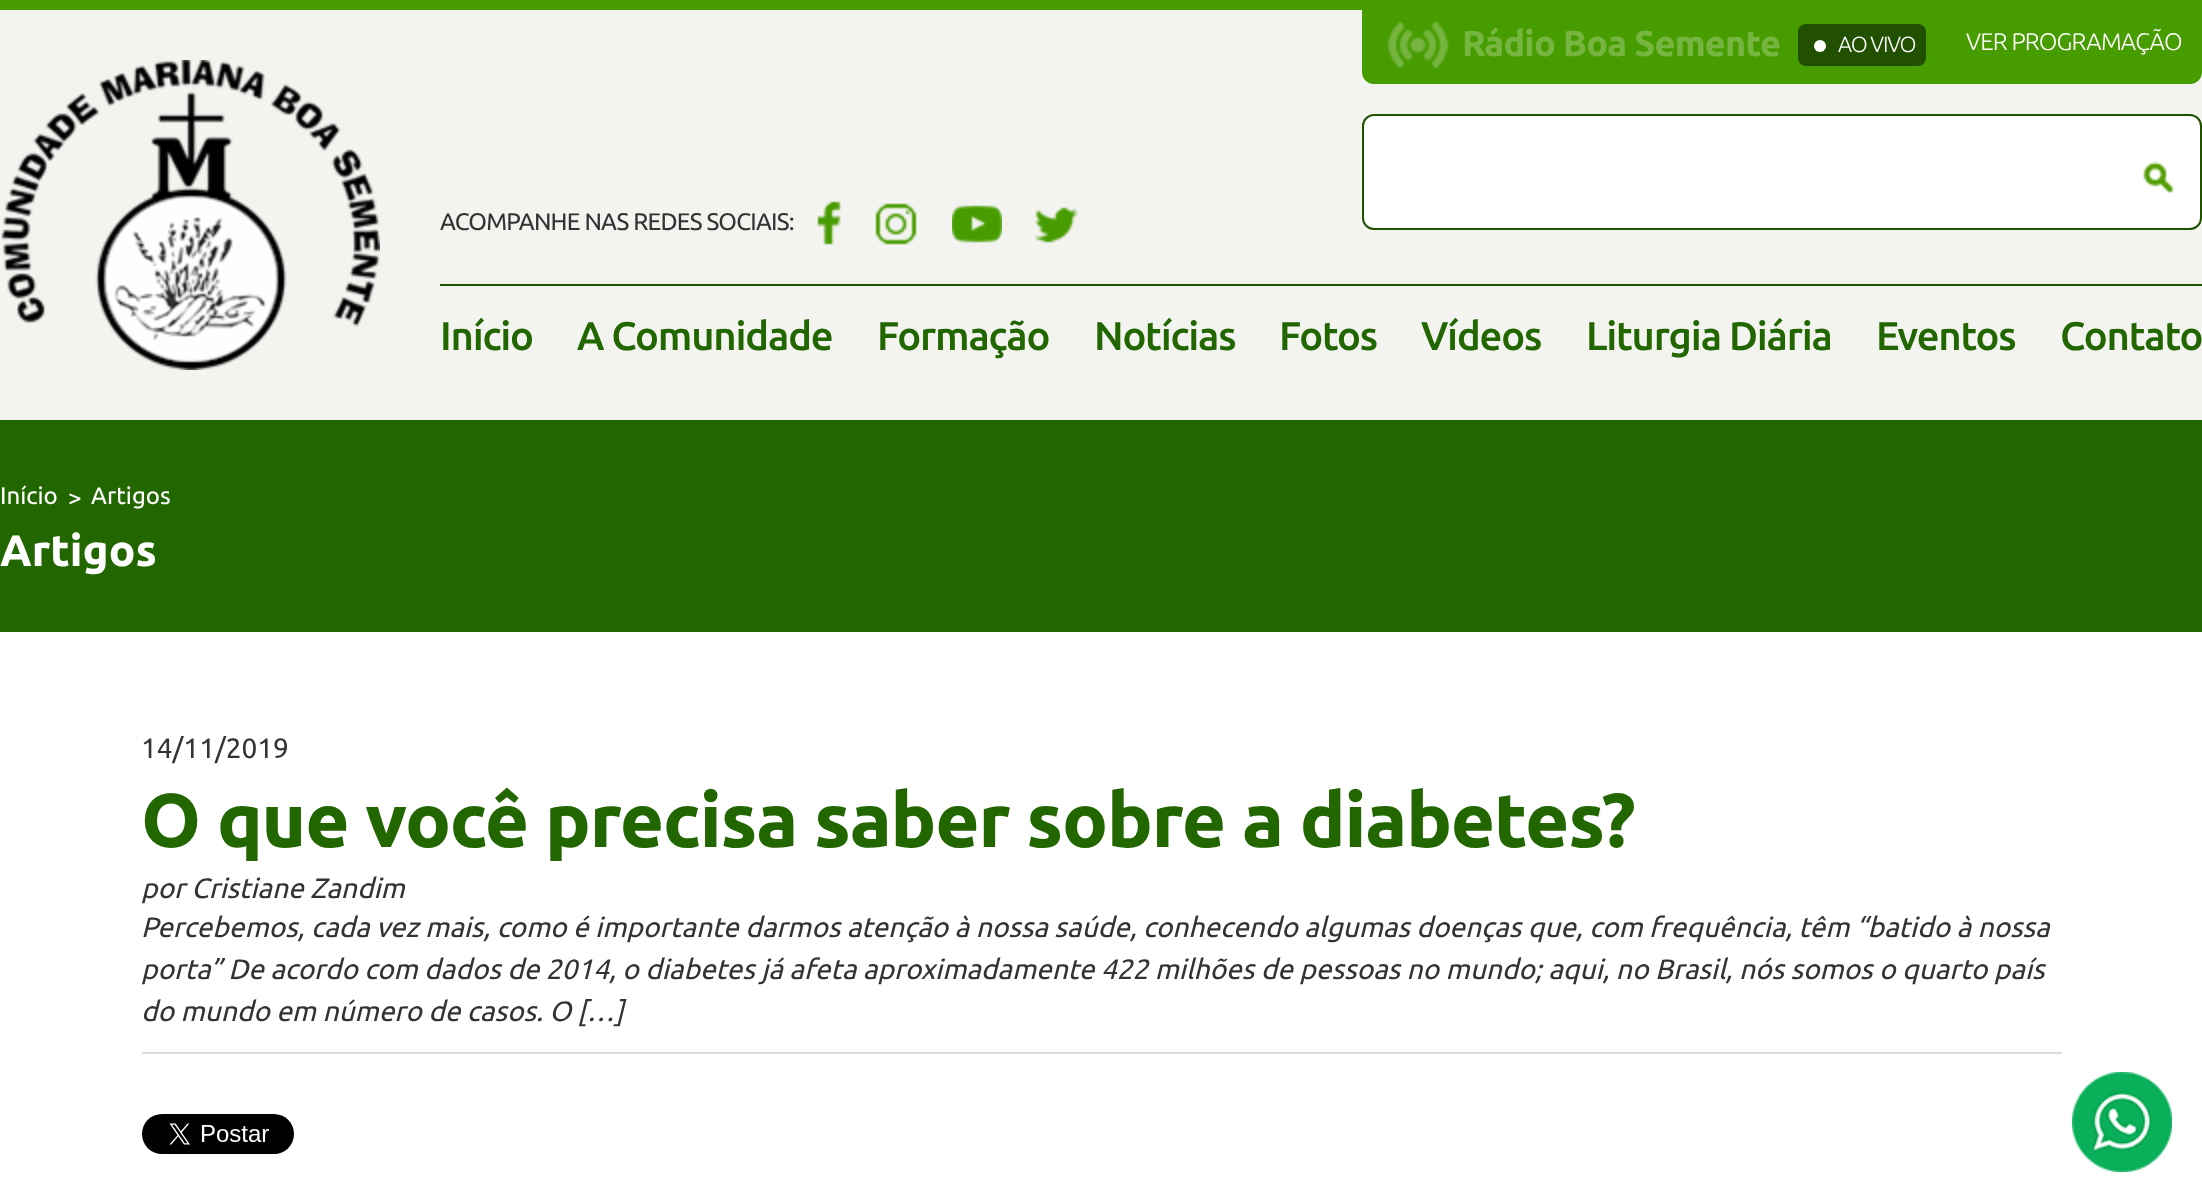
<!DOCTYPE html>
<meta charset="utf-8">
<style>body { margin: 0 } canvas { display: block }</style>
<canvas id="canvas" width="2202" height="1202"></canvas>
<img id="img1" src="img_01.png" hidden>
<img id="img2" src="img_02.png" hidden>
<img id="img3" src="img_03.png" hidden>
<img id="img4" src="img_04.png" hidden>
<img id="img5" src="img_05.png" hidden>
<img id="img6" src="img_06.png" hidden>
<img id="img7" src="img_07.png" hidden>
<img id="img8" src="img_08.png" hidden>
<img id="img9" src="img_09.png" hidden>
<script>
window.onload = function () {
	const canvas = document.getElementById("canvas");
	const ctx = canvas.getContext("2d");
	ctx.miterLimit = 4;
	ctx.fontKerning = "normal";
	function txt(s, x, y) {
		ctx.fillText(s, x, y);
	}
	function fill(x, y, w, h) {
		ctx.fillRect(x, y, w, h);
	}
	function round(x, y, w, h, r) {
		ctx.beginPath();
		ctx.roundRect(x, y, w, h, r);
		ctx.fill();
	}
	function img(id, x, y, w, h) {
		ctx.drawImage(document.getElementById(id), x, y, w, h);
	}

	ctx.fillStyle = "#FFFFFF";
	fill(0, 0, 2202, 1202);
	ctx.fillStyle = "#F3F3F0";
	fill(0, 10, 2202, 410);
	ctx.fillStyle = "#479C00";
	fill(0, 0, 2202, 10);
	img("img1", 1, 60, 379, 310);
	ctx.beginPath();
	ctx.roundRect(1362, 10, 840, 74, [0, 0, 12, 12]);
	ctx.fill();
	img("img2", 1387, 22, 62, 47);
	ctx.fillStyle = "#215000";
	round(1798, 24, 128, 42, 8);
	ctx.fillStyle = "#FFFFFF";
	ctx.beginPath();
	ctx.arc(1820, 46, 6, 0, Math.PI * 2);
	ctx.fill();
	ctx.beginPath();
	ctx.roundRect(1363, 115, 838, 114, 11);
	ctx.fill();
	ctx.strokeStyle = "#215000";
	ctx.lineWidth = 2;
	ctx.stroke();
	img("img3", 2143, 161, 32, 32);
	img("img4", 817, 201, 24, 44);
	img("img5", 875, 203, 42, 42);
	img("img6", 952, 205, 50, 38);
	img("img7", 1034, 207, 45, 36);
	ctx.fillStyle = "#215000";
	fill(440, 284, 1762, 2);
	ctx.fillStyle = "#226600";
	fill(0, 420, 2202, 212);
	ctx.fillStyle = "#DADEE0";
	fill(142, 1052, 1920, 2);
	img("img8", 142, 1114, 152, 40);
	img("img9", 2072, 1072, 100, 100);
	ctx.letterSpacing = "-0.8px";
	ctx.font = "bold 36px Ubuntu";
	ctx.fillStyle = "#75B540";
	txt("Rádio Boa Semente", 1462, 56);
	ctx.letterSpacing = "-1.2px";
	ctx.font = "300 22px Ubuntu";
	ctx.fillStyle = "#FFFFFF";
	txt("AO VIVO", 1838, 52);
	ctx.letterSpacing = "-0.8px";
	ctx.font = "300 24px Ubuntu";
	txt("VER PROGRAMAÇÃO", 1966, 50);
	ctx.font = "24px Ubuntu";
	ctx.fillStyle = "#333333";
	txt("ACOMPANHE NAS REDES SOCIAIS:", 440, 230);
	ctx.letterSpacing = "-1.2px";
	ctx.font = "500 40px Ubuntu";
	ctx.fillStyle = "#226600";
	txt("Início", 440, 350);
	txt("A Comunidade", 577, 350);
	txt("Formação", 877, 350);
	txt("Notícias", 1094, 350);
	txt("Fotos", 1279, 350);
	txt("Vídeos", 1421, 350);
	txt("Liturgia Diária", 1586, 350);
	txt("Eventos", 1876, 350);
	txt("Contato", 2060, 350);
	ctx.letterSpacing = "0px";
	ctx.font = "24px Ubuntu";
	ctx.fillStyle = "#FFFFFF";
	txt("Início", 0, 504);
	txt(">", 68, 506);
	txt("Artigos", 91, 504);
	ctx.font = "bold 44px Ubuntu";
	txt("Artigos", 0, 566);
	ctx.font = "28px Ubuntu";
	ctx.fillStyle = "#333333";
	txt("14/11/2019", 141, 758);
	ctx.letterSpacing = "-1.2px";
	ctx.font = "bold 76px Ubuntu";
	ctx.fillStyle = "#226600";
	txt("O que você precisa saber sobre a diabetes?", 141, 847);
	ctx.letterSpacing = "0px";
	ctx.font = "italic 28px Ubuntu";
	ctx.fillStyle = "#333333";
	txt("por Cristiane Zandim", 141, 898);
	txt("Percebemos, cada vez mais, como é importante darmos atenção à nossa saúde, conhecendo algumas doenças que, com frequência, têm “batido à nossa", 141, 937);
	txt("porta” De acordo com dados de 2014, o diabetes já afeta aproximadamente 422 milhões de pessoas no mundo; aqui, no Brasil, nós somos o quarto país", 141, 979);
	txt("do mundo em número de casos. O […]", 141, 1021);
};
</script>
